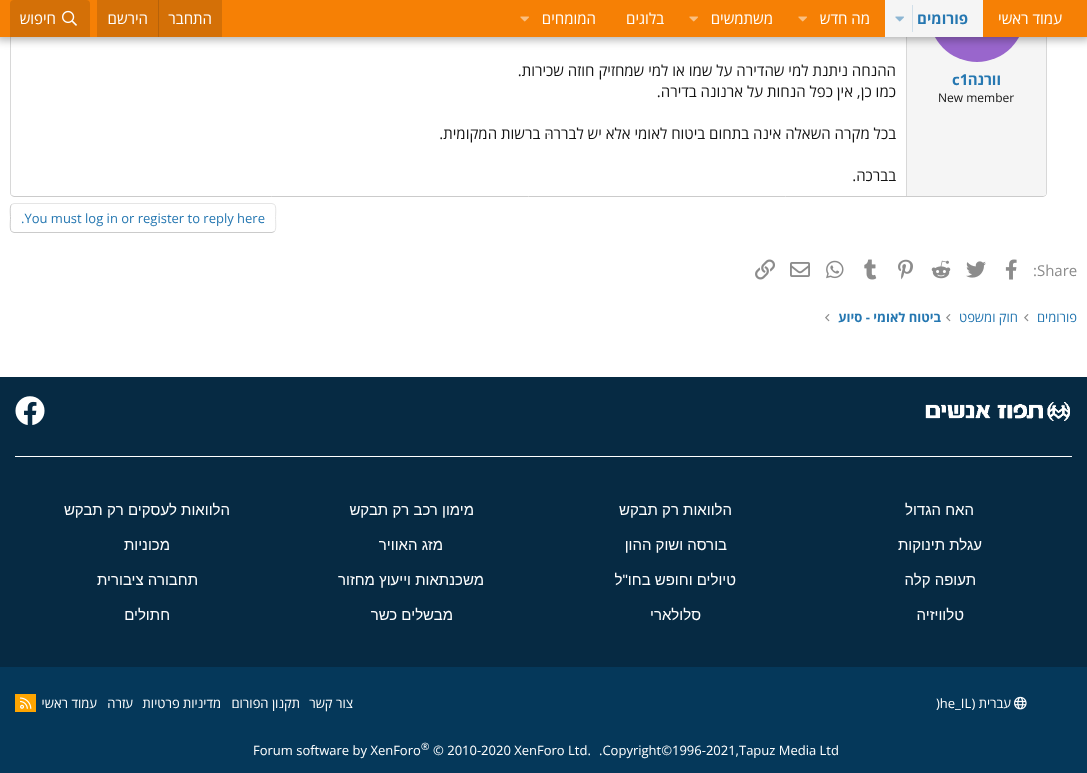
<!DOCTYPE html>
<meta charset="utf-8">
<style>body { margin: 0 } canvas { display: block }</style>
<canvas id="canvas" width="1087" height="773"></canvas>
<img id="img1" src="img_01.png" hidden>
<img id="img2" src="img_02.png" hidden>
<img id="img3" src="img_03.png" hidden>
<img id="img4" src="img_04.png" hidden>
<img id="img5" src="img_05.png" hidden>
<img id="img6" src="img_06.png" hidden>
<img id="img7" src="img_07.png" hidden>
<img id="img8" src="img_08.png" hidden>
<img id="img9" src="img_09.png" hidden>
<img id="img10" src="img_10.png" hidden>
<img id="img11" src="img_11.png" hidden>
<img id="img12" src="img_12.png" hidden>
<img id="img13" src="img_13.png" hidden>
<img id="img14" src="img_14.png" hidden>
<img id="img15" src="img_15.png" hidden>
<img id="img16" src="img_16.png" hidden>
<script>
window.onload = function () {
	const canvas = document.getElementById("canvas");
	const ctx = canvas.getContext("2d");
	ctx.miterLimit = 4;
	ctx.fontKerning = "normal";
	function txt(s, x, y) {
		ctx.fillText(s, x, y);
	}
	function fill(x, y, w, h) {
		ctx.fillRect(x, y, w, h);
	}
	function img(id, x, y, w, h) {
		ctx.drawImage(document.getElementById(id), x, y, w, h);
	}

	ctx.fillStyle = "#FFFFFF";
	fill(0, 0, 1087, 773);
	ctx.beginPath();
	ctx.moveTo(1045.5, -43.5);
	ctx.bezierCurveTo(1046, -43, 1046.5, -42, 1046.5, -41);
	ctx.lineTo(1046.5, 193);
	ctx.bezierCurveTo(1046.5, 194, 1046, 195, 1045.5, 195.5);
	ctx.strokeStyle = "#D8D8D8";
	ctx.stroke();
	ctx.beginPath();
	ctx.moveTo(1045.5, 195.5);
	ctx.lineTo(1043, 196.5);
	ctx.lineTo(14, 196.5);
	ctx.lineTo(11.5, 195.5);
	ctx.strokeStyle = "#CBCBCB";
	ctx.stroke();
	ctx.beginPath();
	ctx.moveTo(11.5, 195.5);
	ctx.bezierCurveTo(11, 195, 10.5, 194, 10.5, 193);
	ctx.lineTo(10.5, -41);
	ctx.bezierCurveTo(10.5, -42, 11, -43, 11.5, -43.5);
	ctx.strokeStyle = "#D8D8D8";
	ctx.stroke();
	ctx.fillStyle = "#F5F5F5";
	ctx.beginPath();
	ctx.moveTo(906, -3);
	ctx.lineTo(1043, -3);
	ctx.bezierCurveTo(1044.5, -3, 1046, -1.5, 1046, 0);
	ctx.lineTo(1046, 193);
	ctx.bezierCurveTo(1046, 194.5, 1044.5, 196, 1043, 196);
	ctx.lineTo(906, 196);
	ctx.closePath();
	ctx.fill();
	ctx.fillStyle = "#D8D8D8";
	fill(906, 37, 1, 159);
	ctx.fillStyle = "#9966CC";
	ctx.beginPath();
	ctx.arc(977, 14, 48, 0, Math.PI * 2);
	ctx.fill();
	ctx.fillStyle = "rgba(0, 0, 0, 0.3)";
	ctx.filter = "blur(4px)";
	ctx.beginPath();
	ctx.rect(-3, -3, 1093, 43);
	ctx.fill();
	ctx.filter = "none";
	ctx.fillStyle = "#F68005";
	fill(0, 0, 1087, 37);
	ctx.fillStyle = "#F5F5F5";
	fill(885, 0, 98, 37);
	ctx.fillStyle = "#D1DFE9";
	fill(912, 5, 1, 27);
	img("img1", 895, 16, 9, 6);
	img("img2", 798, 16, 9, 6);
	img("img2", 689, 16, 9, 6);
	img("img2", 520, 16, 9, 6);
	ctx.fillStyle = "#D47007";
	fill(97, 0, 125, 37);
	ctx.fillStyle = "#B76209";
	fill(158, 0, 1, 37);
	ctx.fillStyle = "#D47007";
	ctx.beginPath();
	ctx.roundRect(10, 0, 80, 37, [4, 4, 0, 0]);
	ctx.fill();
	img("img3", 62, 10, 15, 16);
	ctx.beginPath();
	ctx.moveTo(11.5, 204.5);
	ctx.lineTo(14, 203.5);
	ctx.lineTo(272, 203.5);
	ctx.lineTo(274.5, 204.5);
	ctx.bezierCurveTo(276.5, 206.5, 275.5, 215, 275.5, 218);
	ctx.bezierCurveTo(275.5, 221, 276.5, 229.5, 274.5, 231.5);
	ctx.strokeStyle = "#E5E5E5";
	ctx.stroke();
	ctx.beginPath();
	ctx.moveTo(274.5, 231.5);
	ctx.lineTo(272, 232.5);
	ctx.lineTo(14, 232.5);
	ctx.lineTo(11.5, 231.5);
	ctx.bezierCurveTo(9.5, 229.5, 10.5, 221, 10.5, 218);
	ctx.bezierCurveTo(10.5, 215, 9.5, 206.5, 11.5, 204.5);
	ctx.strokeStyle = "#CBCBCB";
	ctx.stroke();
	img("img4", 1005, 259, 12, 21);
	img("img5", 966, 261, 20, 17);
	img("img6", 931, 260, 20, 19);
	img("img7", 898, 259, 15, 21);
	img("img8", 864, 259, 13, 21);
	img("img9", 826, 260, 18, 19);
	img("img10", 790, 262, 20, 15);
	img("img11", 755, 259, 20, 21);
	img("img12", 1024, 314, 5, 8);
	img("img12", 946, 314, 5, 8);
	img("img12", 825, 314, 5, 8);
	ctx.fillStyle = "#062A43";
	fill(0, 377, 1087, 290);
	ctx.fillStyle = "#FFFFFF";
	fill(15, 456, 1057, 1);
	img("img13", 925, 402, 145, 19);
	img("img14", 15, 396, 30, 29);
	ctx.fillStyle = "#05385A";
	fill(0, 667, 1087, 106);
	img("img15", 1014, 696, 13, 14);
	ctx.fillStyle = "#FFA500";
	fill(15, 694, 21, 18);
	img("img16", 20, 697, 12, 12);
	ctx.direction = "rtl";
	ctx.font = "15px Open Sans";
	ctx.fillStyle = "#FFFFFF";
	txt("עמוד ראשי", 1062, 24);
	ctx.font = "bold 15px Open Sans";
	ctx.fillStyle = "#2577B1";
	txt("פורומים", 968, 24);
	ctx.font = "15px Open Sans";
	ctx.fillStyle = "#FFFFFF";
	txt("מה חדש", 870, 24);
	txt("משתמשים", 773, 24);
	txt("בלוגים", 664, 24);
	txt("המומחים", 596, 24);
	txt("התחבר", 212, 24);
	txt("הירשם", 148, 24);
	txt("חיפוש", 56, 24);
	ctx.font = "bold 15px Open Sans";
	ctx.fillStyle = "#2577B1";
	txt("וורנה", 1001, 85);
	ctx.direction = "ltr";
	txt("c1", 952, 85);
	ctx.font = "12px Open Sans";
	ctx.fillStyle = "#141414";
	txt("New member", 938, 102);
	ctx.direction = "rtl";
	ctx.font = "15px Open Sans";
	txt("ההנחה ניתנת למי שהדירה על שמו או למי שמחזיק חוזה שכירות.", 896, 76);
	txt("כמו כן, אין כפל הנחות על ארנונה בדירה.", 896, 97);
	txt("בכל מקרה השאלה אינה בתחום ביטוח לאומי אלא יש לבררהּ ברשות המקומית.", 896, 139);
	txt("בברכה.", 896, 181);
	ctx.direction = "ltr";
	ctx.font = "13px Open Sans";
	ctx.fillStyle = "#2577B1";
	txt(".You must log in or register to reply here", 21, 223);
	ctx.font = "15px Open Sans";
	ctx.fillStyle = "#8C8C8C";
	txt(":Share", 1033, 276);
	ctx.direction = "rtl";
	ctx.font = "13px Open Sans";
	ctx.fillStyle = "#2577B1";
	txt("פורומים", 1077, 322);
	txt("חוק ומשפט", 1018, 322);
	ctx.font = "bold 13px Open Sans";
	txt("ביטוח לאומי - סיוע", 941, 322);
	ctx.font = "15px Liberation Sans";
	ctx.fillStyle = "#FFFFFF";
	txt("האח הגדול", 974, 515);
	txt("הלוואות רק תבקש", 732, 515);
	txt("מימון רכב רק תבקש", 474, 515);
	txt("הלוואות לעסקים רק תבקש", 230, 515);
	txt("עגלת תינוקות", 982, 550);
	txt("בורסה ושוק ההון", 727, 550);
	txt("מזג האוויר", 443, 550);
	txt("מכוניות", 170, 550);
	txt("תעופה קלה", 976, 585);
	txt("טיולים וחופש בחו\"ל", 736, 585);
	txt("משכנתאות וייעוץ מחזור", 484, 585);
	txt("תחבורה ציבורית", 198, 585);
	txt("טלוויזיה", 964, 620);
	txt("סלולארי", 701, 620);
	txt("מבשלים כשר", 453, 620);
	txt("חתולים", 170, 620);
	ctx.font = "13px Open Sans";
	txt("עברית (", 1011, 708);
	ctx.direction = "ltr";
	txt(")he_IL", 936, 708);
	ctx.direction = "rtl";
	txt("צור קשר", 353, 708);
	txt("תקנון הפורום", 300, 708);
	txt("מדיניות פרטיות", 221, 708);
	txt("עזרה", 133, 708);
	txt("עמוד ראשי", 97, 708);
	ctx.direction = "ltr";
	txt(".Copyright©1996-2021,Tapuz Media Ltd", 599, 755);
	txt("© 2010-2020 XenForo Ltd.", 433, 755);
	ctx.font = "10px Open Sans";
	txt("®", 421, 750);
	ctx.font = "13px Open Sans";
	txt("Forum software by XenForo", 253, 755);
};
</script>
